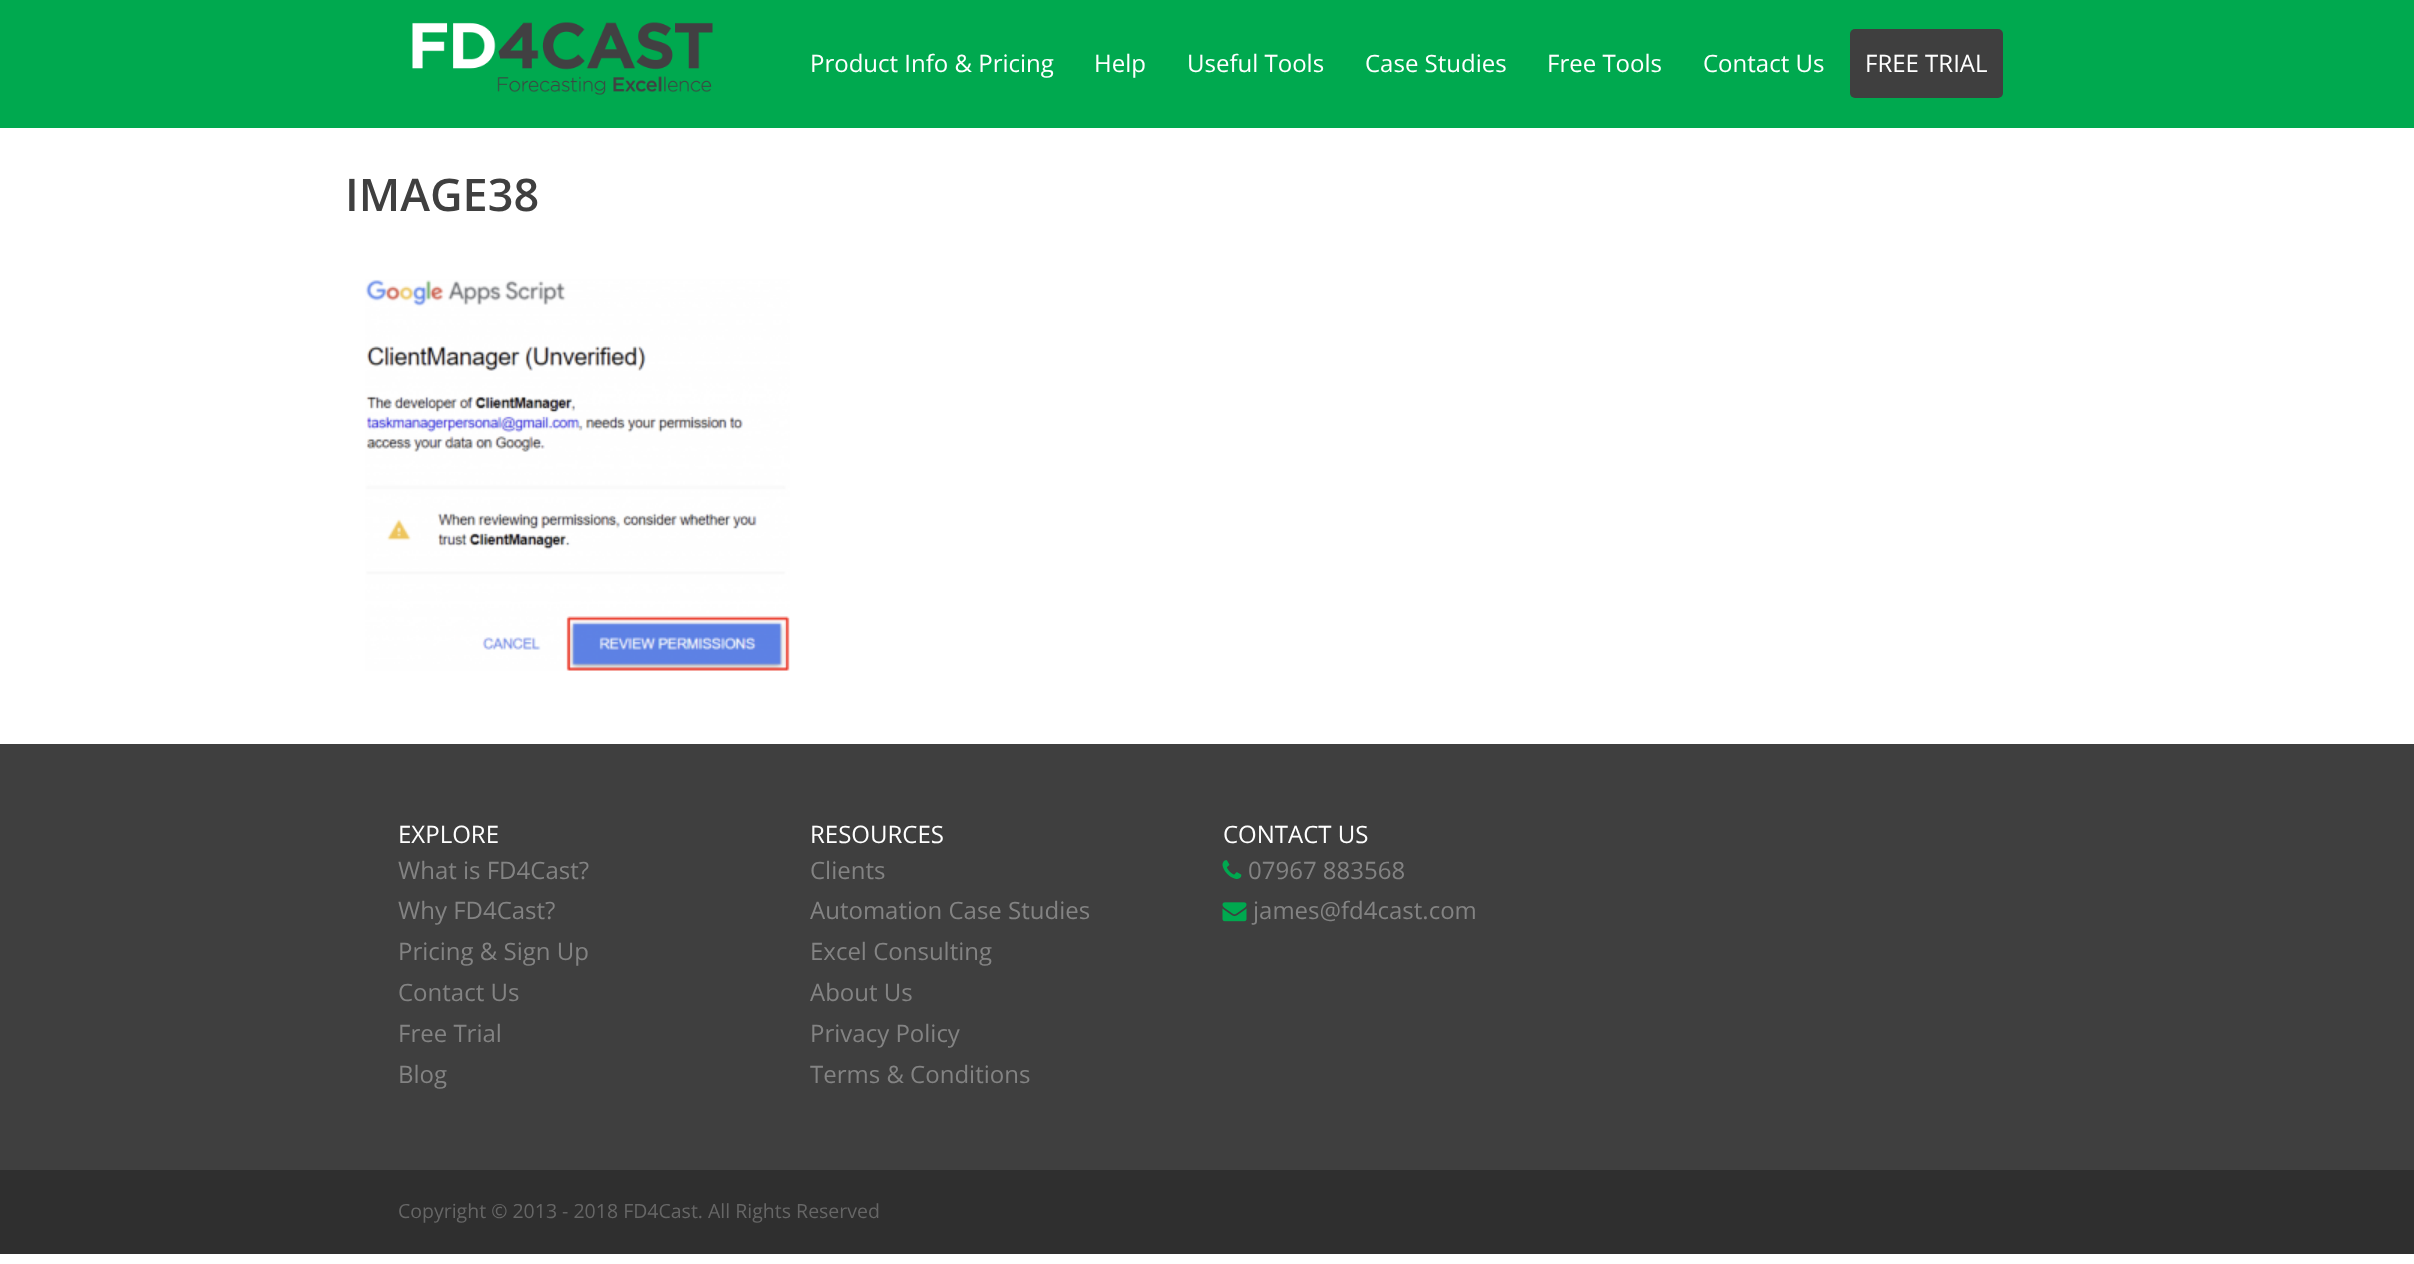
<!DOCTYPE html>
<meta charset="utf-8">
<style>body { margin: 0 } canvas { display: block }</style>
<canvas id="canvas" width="2414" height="1264"></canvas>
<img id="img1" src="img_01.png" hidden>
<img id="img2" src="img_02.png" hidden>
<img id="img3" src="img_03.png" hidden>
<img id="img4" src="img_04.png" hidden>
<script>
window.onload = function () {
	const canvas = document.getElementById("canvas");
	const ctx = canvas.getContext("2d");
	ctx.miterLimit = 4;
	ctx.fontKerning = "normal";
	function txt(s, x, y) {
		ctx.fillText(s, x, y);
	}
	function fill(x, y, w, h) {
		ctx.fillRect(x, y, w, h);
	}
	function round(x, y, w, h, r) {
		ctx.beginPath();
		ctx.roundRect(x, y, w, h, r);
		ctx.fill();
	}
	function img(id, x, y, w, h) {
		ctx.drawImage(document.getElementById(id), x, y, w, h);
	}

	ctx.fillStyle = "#FFFFFF";
	fill(0, 0, 2414, 1264);
	ctx.fillStyle = "#00A94F";
	fill(0, 0, 2414, 128);
	img("img1", 412, 22, 301, 73);
	ctx.fillStyle = "#3F3F3F";
	round(1850, 29, 153, 69, 5);
	img("img2", 365, 279, 425, 392);
	fill(0, 744, 2414, 426);
	img("img3", 1222, 860, 20, 19);
	img("img4", 1222, 902, 25, 20);
	ctx.fillStyle = "#2F2F2F";
	fill(0, 1170, 2414, 84);
	ctx.font = "24px Open Sans";
	ctx.fillStyle = "#FFFFFF";
	txt("Product Info & Pricing", 810, 72);
	txt("Help", 1094, 72);
	txt("Useful Tools", 1187, 72);
	txt("Case Studies", 1365, 72);
	txt("Free Tools", 1547, 72);
	txt("Contact Us", 1703, 72);
	txt("FREE TRIAL", 1865, 72);
	ctx.font = "600 45px Open Sans";
	ctx.fillStyle = "#3F3F3F";
	txt("IMAGE38", 345, 211);
	ctx.font = "24px Open Sans";
	ctx.fillStyle = "#FFFFFF";
	txt("EXPLORE", 398, 843);
	ctx.fillStyle = "#838383";
	txt("What is FD4Cast?", 398, 879);
	txt("Why FD4Cast?", 398, 919);
	txt("Pricing & Sign Up", 398, 960);
	txt("Contact Us", 398, 1001);
	txt("Free Trial", 398, 1042);
	txt("Blog", 398, 1083);
	ctx.fillStyle = "#FFFFFF";
	txt("RESOURCES", 810, 843);
	ctx.fillStyle = "#838383";
	txt("Clients", 810, 879);
	txt("Automation Case Studies", 810, 919);
	txt("Excel Consulting", 810, 960);
	txt("About Us", 810, 1001);
	txt("Privacy Policy", 810, 1042);
	txt("Terms & Conditions", 810, 1083);
	ctx.fillStyle = "#FFFFFF";
	txt("CONTACT US", 1223, 843);
	ctx.fillStyle = "#838383";
	txt("07967 883568", 1248, 879);
	txt("james@fd4cast.com", 1253, 919);
	ctx.font = "19.5px Open Sans";
	ctx.fillStyle = "#666666";
	txt("Copyright © 2013 - 2018 FD4Cast. All Rights Reserved", 398, 1218);
};
</script>
